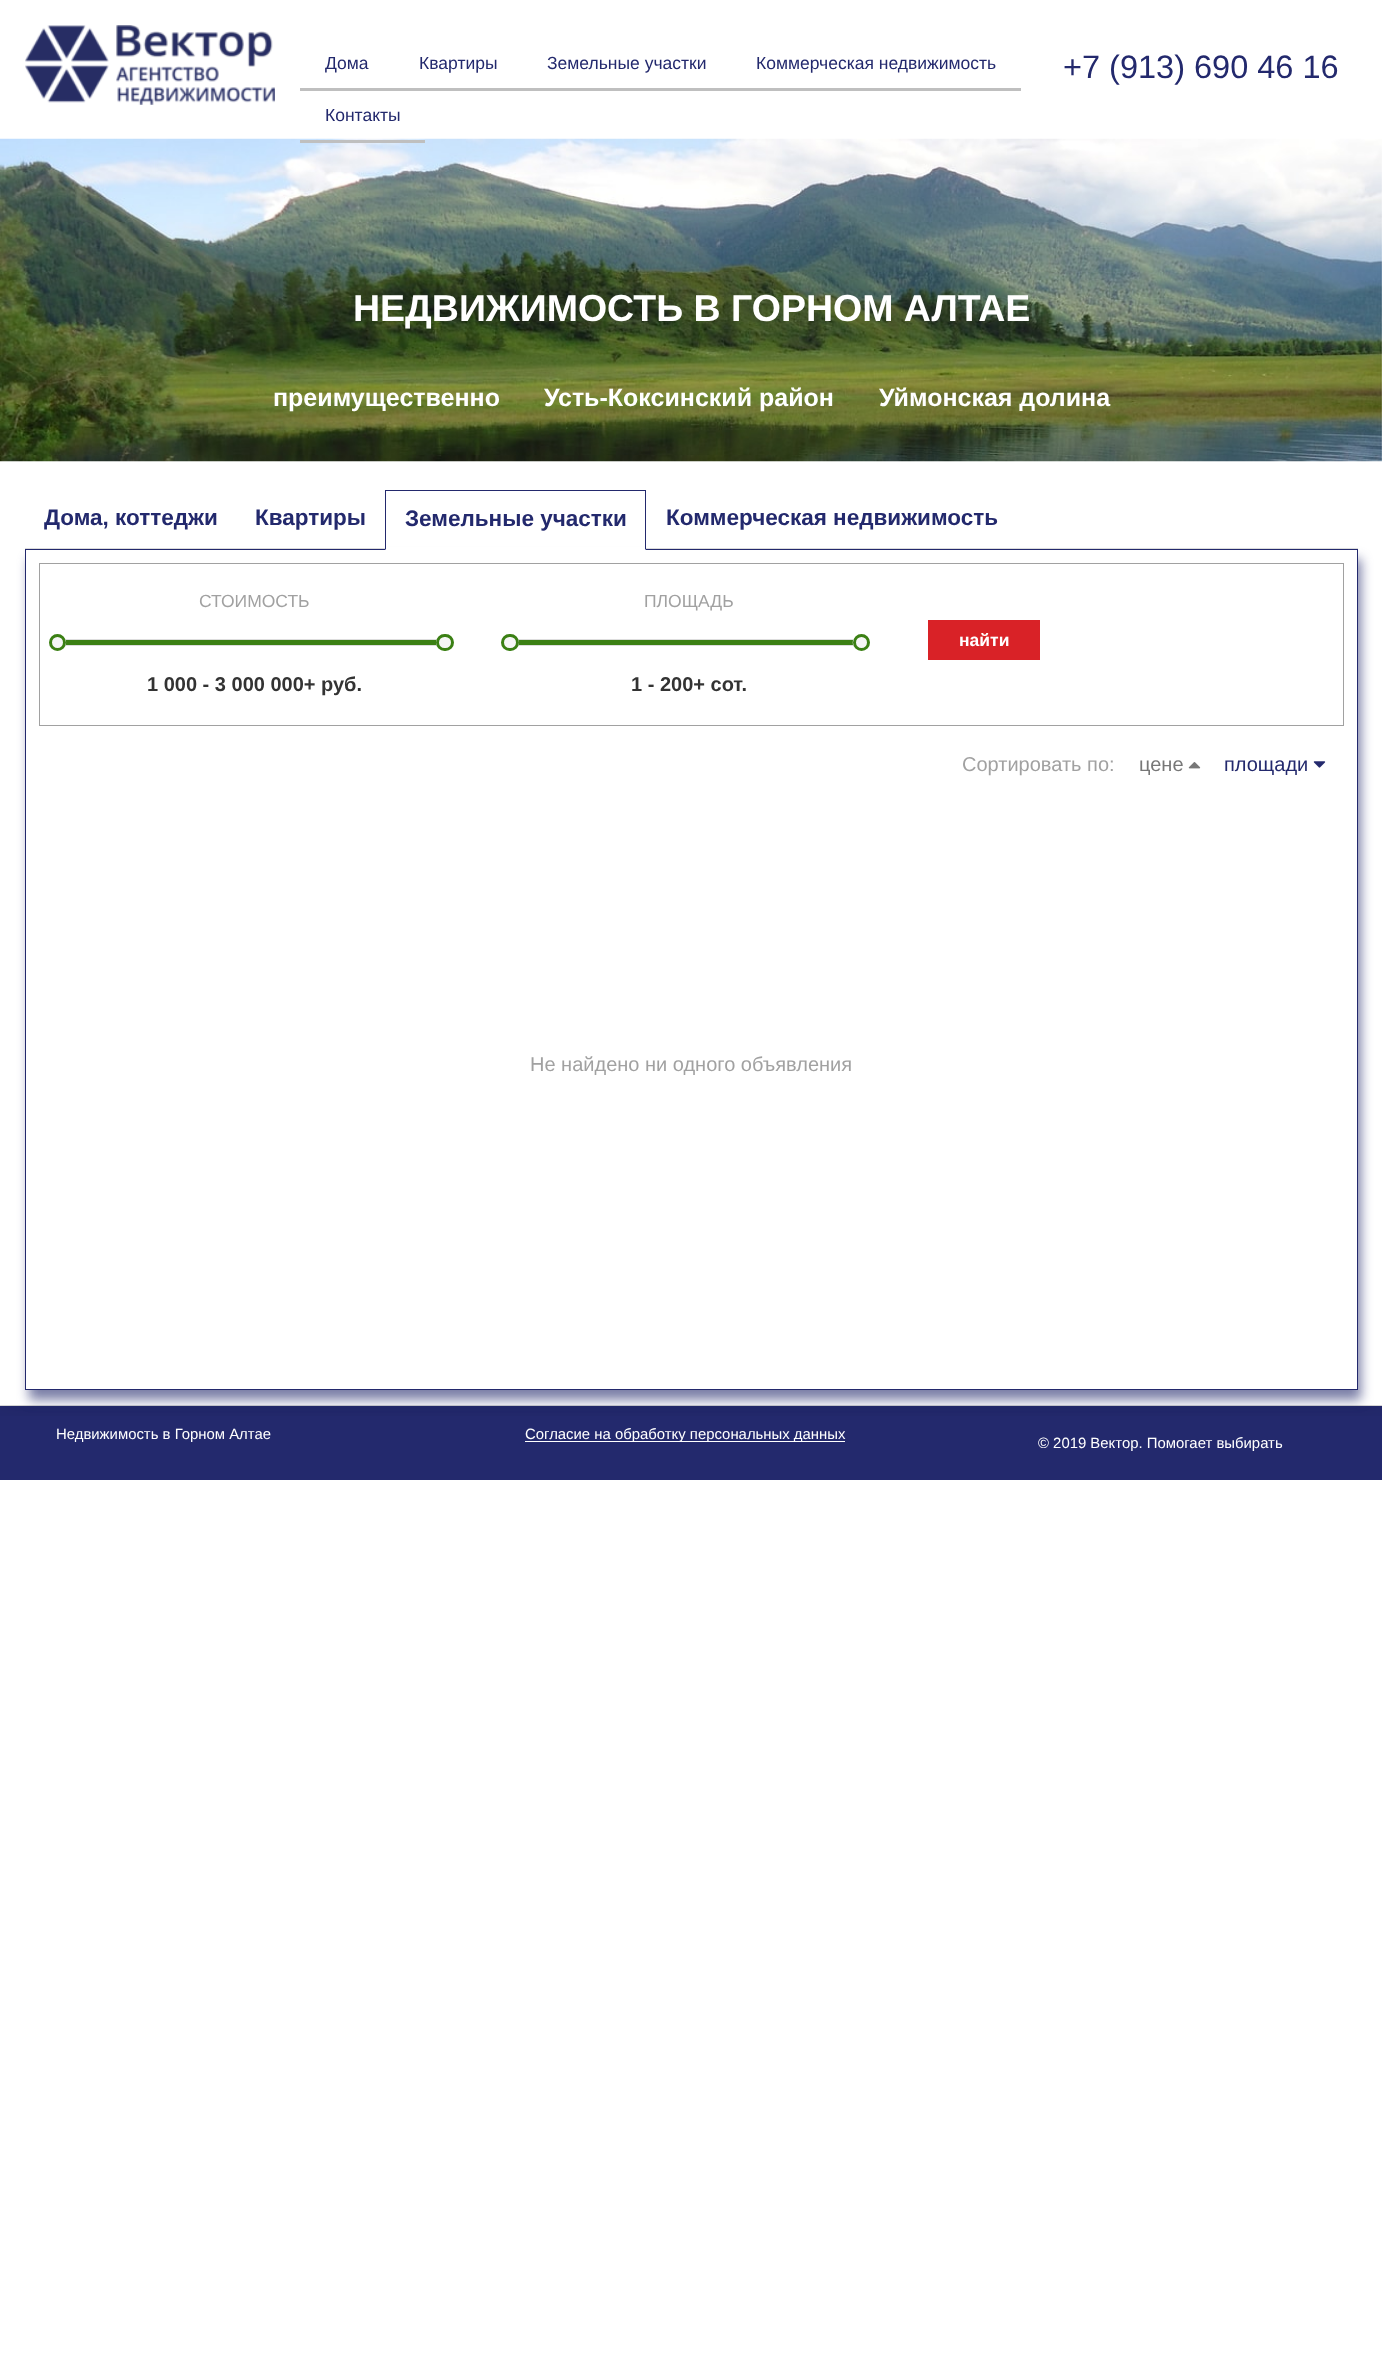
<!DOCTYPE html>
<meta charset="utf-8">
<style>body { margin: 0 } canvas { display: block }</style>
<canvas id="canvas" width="1382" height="2371"></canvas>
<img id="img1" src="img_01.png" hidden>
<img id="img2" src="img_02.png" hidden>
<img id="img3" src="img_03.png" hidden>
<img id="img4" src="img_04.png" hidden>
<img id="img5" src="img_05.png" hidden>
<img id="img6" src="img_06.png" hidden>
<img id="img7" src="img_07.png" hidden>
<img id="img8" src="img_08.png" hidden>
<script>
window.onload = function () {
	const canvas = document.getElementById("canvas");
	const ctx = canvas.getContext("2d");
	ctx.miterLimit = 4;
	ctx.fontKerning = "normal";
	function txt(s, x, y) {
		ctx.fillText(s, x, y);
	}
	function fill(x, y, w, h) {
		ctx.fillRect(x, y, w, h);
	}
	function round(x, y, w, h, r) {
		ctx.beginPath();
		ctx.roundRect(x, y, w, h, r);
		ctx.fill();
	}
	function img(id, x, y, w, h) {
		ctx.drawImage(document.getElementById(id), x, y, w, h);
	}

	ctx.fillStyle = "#FFFFFF";
	fill(0, 0, 1382, 2371);
	ctx.fillStyle = "#23296D";
	fill(0, 1406, 1382, 74);
	ctx.fillStyle = "#DDDDDD";
	fill(0, 1405, 1382, 1);
	ctx.fillStyle = "#FFFFFF";
	fill(525, 1441, 320, 1);
	ctx.save();
	ctx.beginPath();
	ctx.rect(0, 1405, 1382, 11);
	ctx.clip();
	ctx.fillStyle = "rgba(0, 0, 0, 0.1)";
	ctx.filter = "blur(12.5px)";
	ctx.beginPath();
	ctx.rect(0, 0, 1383, 1405);
	ctx.fill();
	ctx.filter = "none";
	ctx.restore();
	img("img1", 25, 25, 250, 80);
	ctx.fillStyle = "#BFBFBF";
	fill(300, 88, 721, 3);
	img("img2", 0, 138, 1382, 324);
	fill(300, 140, 125, 3);
	ctx.fillStyle = "#DDDDDD";
	fill(25, 548, 1333, 1);
	ctx.save();
	ctx.beginPath();
	ctx.moveTo(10, 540);
	ctx.lineTo(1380, 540);
	ctx.lineTo(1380, 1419);
	ctx.lineTo(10, 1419);
	ctx.closePath();
	ctx.moveTo(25, 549);
	ctx.lineTo(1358, 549);
	ctx.lineTo(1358, 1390);
	ctx.lineTo(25, 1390);
	ctx.closePath();
	ctx.clip("evenodd");
	ctx.fillStyle = "rgba(35, 41, 109, 0.6)";
	ctx.filter = "blur(6px)";
	ctx.beginPath();
	ctx.rect(29, 559, 1332, 841);
	ctx.fill();
	ctx.filter = "none";
	ctx.restore();
	ctx.fillStyle = "#FFFFFF";
	fill(33, 547, 352, 1);
	ctx.strokeStyle = "#23296D";
	ctx.strokeRect(25.5, 549.5, 1332, 840);
	fill(385, 547, 261, 3);
	ctx.fillStyle = "#23296D";
	fill(385, 490, 261, 1);
	ctx.beginPath();
	ctx.moveTo(646, 490);
	ctx.lineTo(646, 550);
	ctx.lineTo(645, 549);
	ctx.lineTo(645, 491);
	ctx.closePath();
	ctx.fill();
	ctx.beginPath();
	ctx.moveTo(385, 550);
	ctx.lineTo(385, 490);
	ctx.lineTo(386, 491);
	ctx.lineTo(386, 549);
	ctx.closePath();
	ctx.fill();
	ctx.fillStyle = "#FFFFFF";
	fill(646, 547, 370, 1);
	ctx.strokeStyle = "#A1A1A1";
	ctx.strokeRect(39.5, 563.5, 1304, 162);
	ctx.strokeStyle = "#DDDDDD";
	ctx.strokeRect(59.5, 639.5, 390, 6);
	ctx.fillStyle = "#3B8014";
	fill(60, 640, 377, 5);
	ctx.fillStyle = "#F6F6F6";
	ctx.beginPath();
	ctx.arc(57.5, 642.5, 8.5, 0, Math.PI * 2);
	ctx.fill();
	img("img3", 65, 639, 2, 7);
	ctx.beginPath();
	ctx.arc(57.5, 642.5, 7, 0, Math.PI * 2);
	ctx.strokeStyle = "#3B8014";
	ctx.lineWidth = 3;
	ctx.stroke();
	round(436, 634, 18, 17, 8.5);
	img("img4", 436, 640, 1, 5);
	ctx.beginPath();
	ctx.roundRect(437.5, 635.5, 15, 14, 7);
	ctx.stroke();
	ctx.strokeStyle = "#DDDDDD";
	ctx.lineWidth = 1;
	ctx.strokeRect(513.5, 639.5, 351, 6);
	ctx.fillStyle = "#3B8014";
	fill(514, 640, 339, 5);
	ctx.fillStyle = "#F6F6F6";
	round(501, 634, 18, 17, 8.5);
	img("img5", 518, 640, 1, 5);
	ctx.beginPath();
	ctx.roundRect(502.5, 635.5, 15, 14, 7);
	ctx.strokeStyle = "#3B8014";
	ctx.lineWidth = 3;
	ctx.stroke();
	ctx.beginPath();
	ctx.arc(861.5, 642.5, 8.5, 0, Math.PI * 2);
	ctx.fill();
	img("img6", 852, 639, 2, 8);
	ctx.beginPath();
	ctx.arc(861.5, 642.5, 7, 0, Math.PI * 2);
	ctx.stroke();
	ctx.fillStyle = "#D92227";
	fill(928, 620, 112, 40);
	img("img7", 1188, 762, 13, 7);
	img("img8", 1313, 761, 13, 7);
	ctx.font = "17.5px Arimo";
	ctx.fillStyle = "#23296D";
	txt("Дома", 325, 69);
	txt("Квартиры", 419, 69);
	txt("Земельные участки", 547, 69);
	txt("Коммерческая недвижимость", 756, 69);
	txt("Контакты", 325, 121);
	ctx.font = "32.5px Liberation Sans";
	txt("+7 (913) 690 46 16", 1063, 78);
	ctx.font = "bold 37.5px Arimo";
	ctx.fillStyle = "#FFFFFF";
	txt("НЕДВИЖИМОСТЬ В ГОРНОМ АЛТАЕ", 353, 321);
	ctx.font = "bold 25px Arimo";
	txt("преимущественно", 273, 406);
	txt("Усть-Коксинский район", 544, 406);
	txt("Уймонская долина", 879, 406);
	ctx.font = "bold 22.5px Arimo";
	ctx.fillStyle = "#23296D";
	txt("Дома, коттеджи", 44, 525);
	txt("Квартиры", 255, 525);
	txt("Земельные участки", 405, 526);
	txt("Коммерческая недвижимость", 666, 525);
	ctx.font = "17.5px Arimo";
	ctx.fillStyle = "#A1A1A1";
	txt("СТОИМОСТЬ", 199, 607);
	ctx.font = "bold 20px Arimo";
	ctx.fillStyle = "#333333";
	txt("1 000 - 3 000 000+ руб.", 147, 691);
	ctx.font = "17.5px Arimo";
	ctx.fillStyle = "#A1A1A1";
	txt("ПЛОЩАДЬ", 644, 607);
	ctx.font = "bold 20px Arimo";
	ctx.fillStyle = "#333333";
	txt("1 - 200+ сот.", 631, 691);
	ctx.font = "bold 17.5px Arimo";
	ctx.fillStyle = "#FFFFFF";
	txt("найти", 959, 646);
	ctx.font = "20px Arimo";
	ctx.fillStyle = "#A1A1A1";
	txt("Сортировать по:", 962, 771);
	ctx.fillStyle = "#777777";
	txt("цене", 1139, 771);
	ctx.fillStyle = "#23296D";
	txt("площади", 1224, 771);
	ctx.fillStyle = "#A1A1A1";
	txt("Не найдено ни одного объявления", 530, 1071);
	ctx.font = "14.9px Arimo";
	ctx.fillStyle = "#FFFFFF";
	txt("Недвижимость в Горном Алтае", 56, 1439);
	txt("Согласие на обработку персональных данных", 525, 1439);
	txt("© 2019 Вектор. Помогает выбирать", 1038, 1448);
};
</script>
